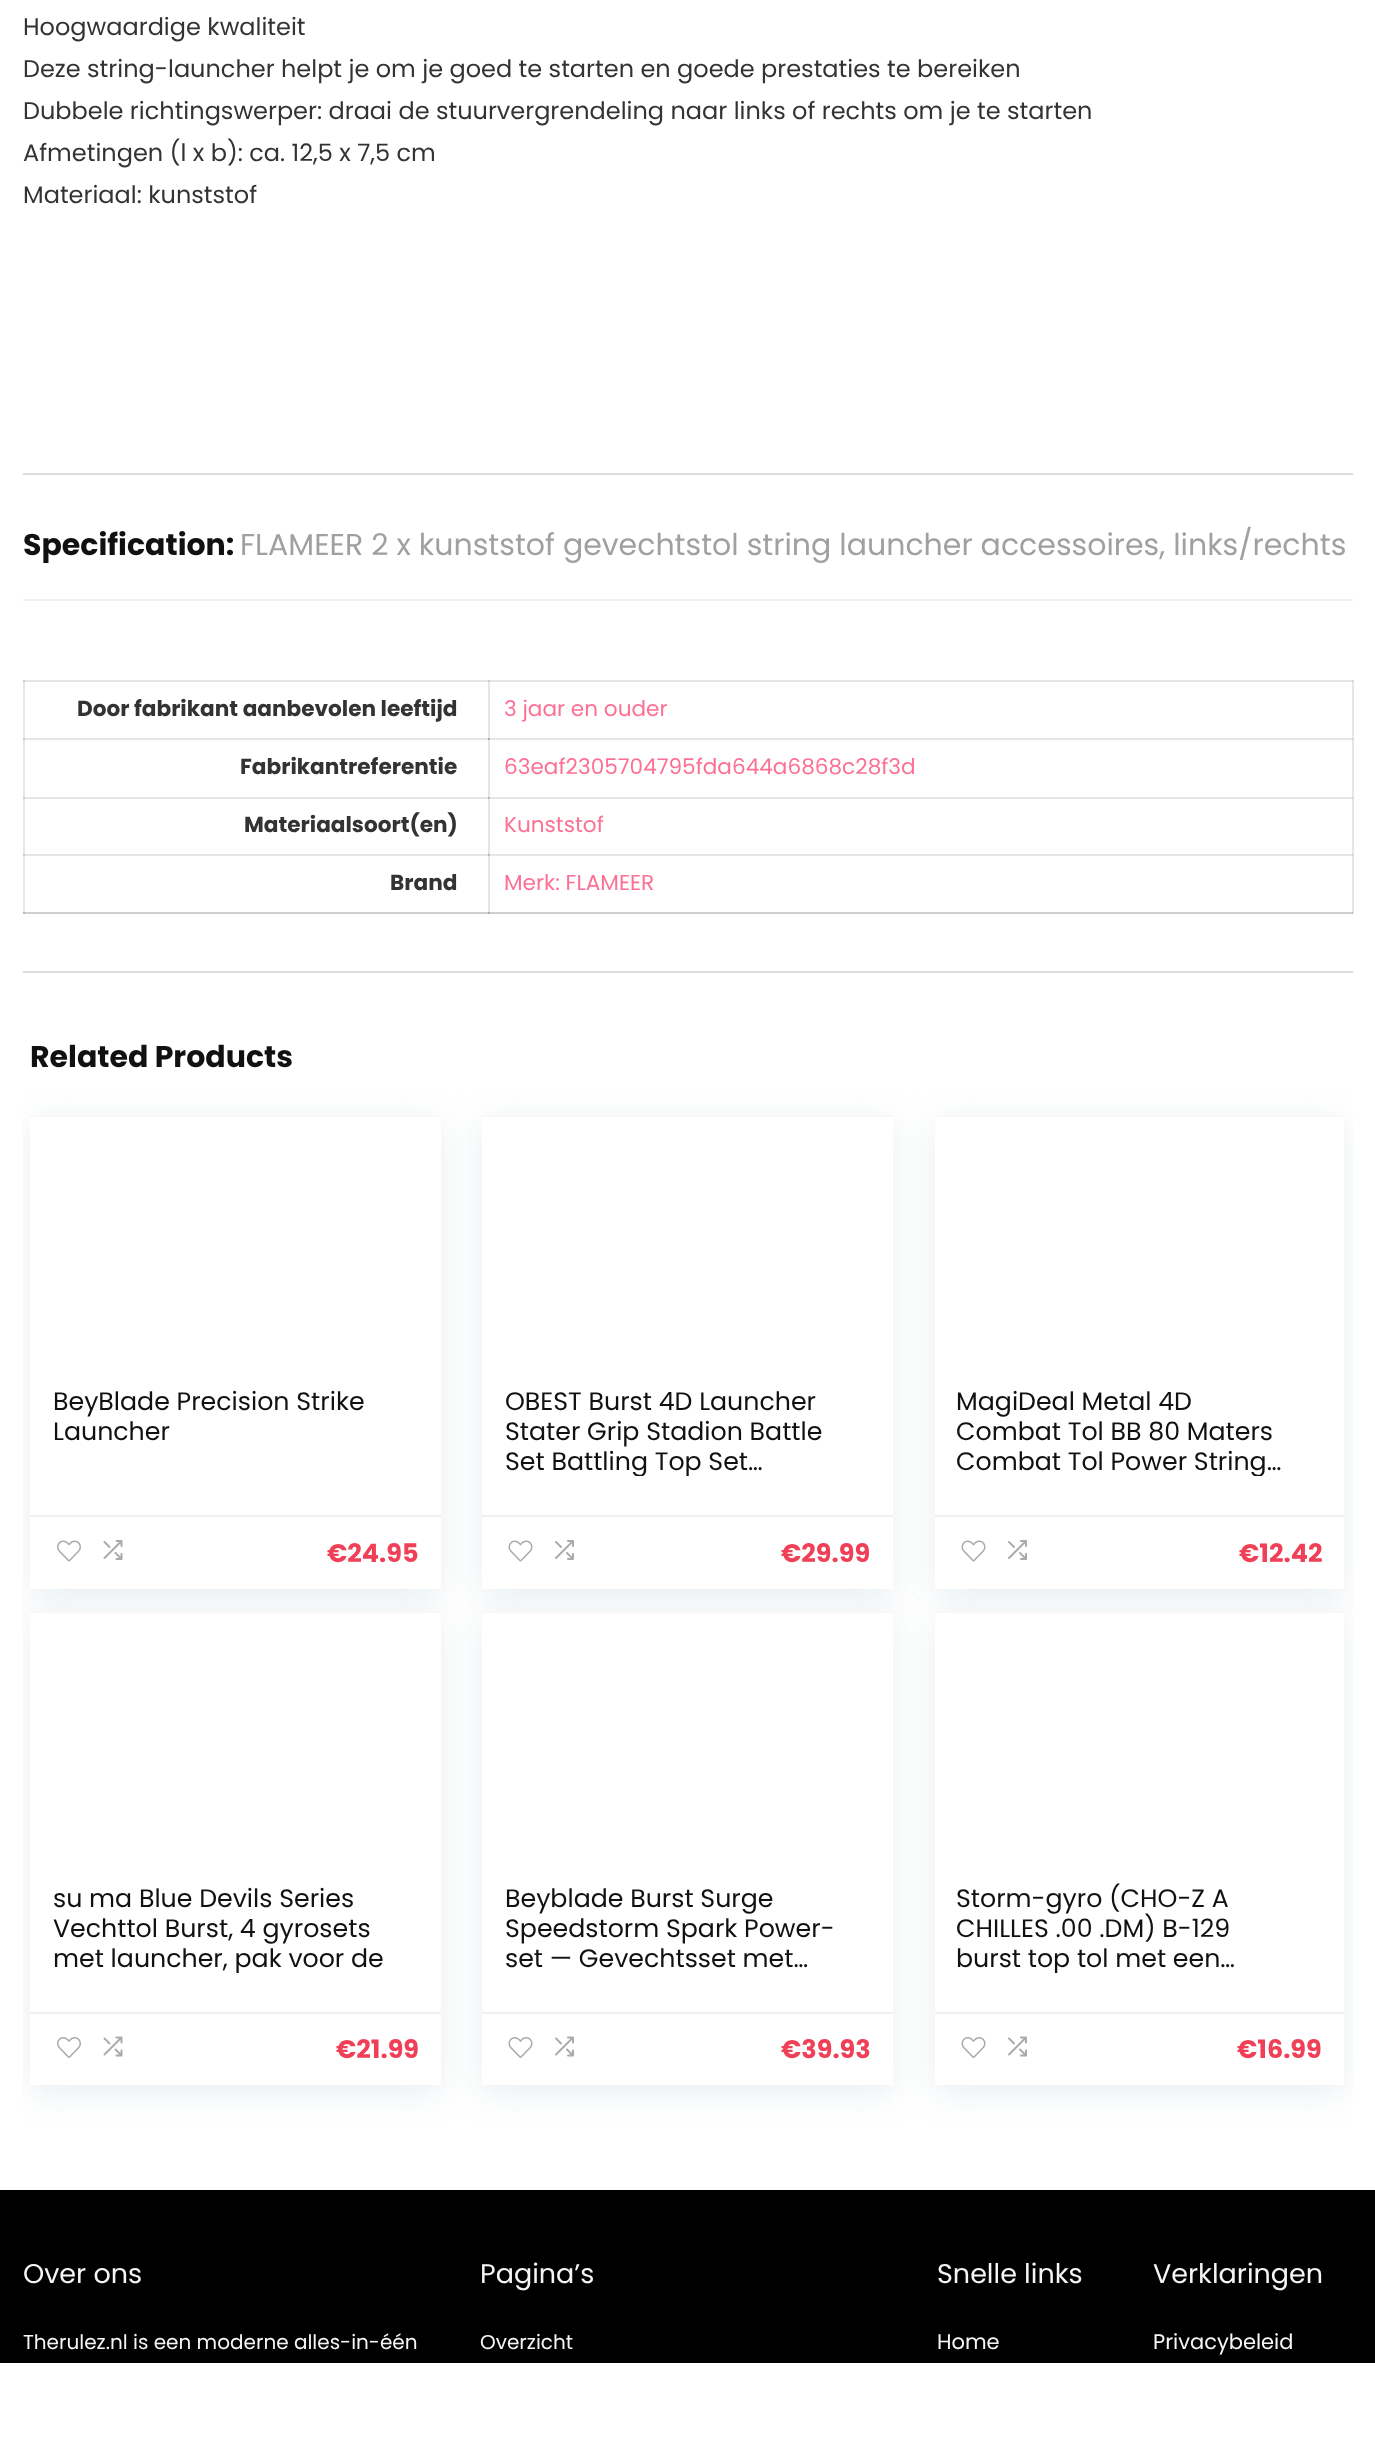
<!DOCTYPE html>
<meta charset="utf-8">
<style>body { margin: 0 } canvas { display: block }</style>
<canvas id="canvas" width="1375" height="2444"></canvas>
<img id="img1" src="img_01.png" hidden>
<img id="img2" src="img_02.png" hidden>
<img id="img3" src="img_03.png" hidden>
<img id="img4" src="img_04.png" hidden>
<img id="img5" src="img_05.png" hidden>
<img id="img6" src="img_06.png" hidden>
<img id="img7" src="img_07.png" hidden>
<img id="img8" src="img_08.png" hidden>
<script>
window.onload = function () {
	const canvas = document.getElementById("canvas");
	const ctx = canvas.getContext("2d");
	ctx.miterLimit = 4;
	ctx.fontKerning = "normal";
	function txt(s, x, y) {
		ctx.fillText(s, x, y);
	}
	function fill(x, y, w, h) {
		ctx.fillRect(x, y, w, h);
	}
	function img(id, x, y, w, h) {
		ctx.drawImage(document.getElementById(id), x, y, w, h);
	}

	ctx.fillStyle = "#FFFFFF";
	fill(0, 0, 1375, 2444);
	ctx.fillStyle = "#E6E6E6";
	fill(23, 738, 466, 2);
	fill(488, 680, 2, 60);
	fill(488, 738, 865, 2);
	fill(23, 797, 466, 2);
	fill(488, 738, 2, 60);
	ctx.fillStyle = "#BABABA";
	fill(488, 738, 2, 2);
	ctx.fillStyle = "#A7A7A7";
	fill(488, 738, 1, 2);
	ctx.fillStyle = "#E6E6E6";
	fill(488, 797, 865, 2);
	fill(23, 854, 466, 2);
	fill(488, 797, 2, 58);
	ctx.fillStyle = "#CFCFCF";
	fill(488, 798, 2, 1);
	ctx.fillStyle = "#BABABA";
	fill(488, 797, 1, 2);
	fill(488, 797, 2, 1);
	ctx.fillStyle = "#A7A7A7";
	fill(488, 797, 1, 1);
	ctx.fillStyle = "#E6E6E6";
	fill(488, 854, 865, 2);
	fill(488, 854, 2, 60);
	ctx.fillStyle = "#CFCFCF";
	fill(488, 855, 2, 1);
	ctx.fillStyle = "#BABABA";
	fill(488, 854, 1, 2);
	fill(488, 854, 2, 1);
	ctx.fillStyle = "#A7A7A7";
	fill(488, 854, 1, 1);
	ctx.fillStyle = "#E6E6E6";
	fill(23, 680, 2, 234);
	ctx.fillStyle = "#CFCFCF";
	fill(23, 738, 2, 2);
	fill(23, 797, 2, 2);
	fill(23, 854, 2, 2);
	fill(23, 912, 1330, 2);
	ctx.fillStyle = "#BABABA";
	fill(488, 912, 2, 2);
	ctx.fillStyle = "#A7A7A7";
	fill(488, 912, 1, 2);
	ctx.fillStyle = "#BABABA";
	fill(23, 912, 2, 2);
	ctx.fillStyle = "#E6E6E6";
	fill(1352, 680, 2, 234);
	ctx.fillStyle = "#CFCFCF";
	fill(1352, 738, 1, 2);
	fill(1352, 797, 1, 2);
	fill(1352, 854, 1, 2);
	ctx.fillStyle = "#BABABA";
	fill(1352, 912, 1, 2);
	ctx.fillStyle = "#E0DADF";
	fill(23, 473, 1330, 2);
	fill(23, 971, 1330, 2);
	ctx.fillStyle = "#F0F0F0";
	fill(23, 599, 1330, 2);
	ctx.fillStyle = "#E6E6E6";
	fill(23, 680, 1330, 2);
	ctx.fillStyle = "#CFCFCF";
	fill(488, 680, 2, 2);
	fill(23, 680, 2, 2);
	fill(1352, 680, 1, 2);
	ctx.save();
	ctx.beginPath();
	ctx.rect(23, 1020, 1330, 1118);
	ctx.clip();
	ctx.fillStyle = "rgba(188, 207, 219, 0.35)";
	ctx.filter = "blur(17px)";
	ctx.beginPath();
	ctx.rect(30, 1122, 411, 474);
	ctx.fill();
	ctx.filter = "none";
	ctx.restore();
	ctx.fillStyle = "#FFFFFF";
	fill(30, 1117, 411, 472);
	ctx.fillStyle = "#F8F8F8";
	fill(30, 1115, 411, 2);
	ctx.fillStyle = "#F0F0F0";
	fill(30, 1515, 411, 2);
	img("img1", 57, 1540, 24, 22);
	img("img2", 103, 1540, 20, 20);
	ctx.fillStyle = "rgba(188, 207, 219, 0.35)";
	ctx.filter = "blur(17px)";
	ctx.beginPath();
	ctx.rect(482, 1122, 411, 474);
	ctx.fill();
	ctx.filter = "none";
	ctx.fillStyle = "#FFFFFF";
	fill(482, 1117, 411, 472);
	ctx.fillStyle = "#F8F8F8";
	fill(482, 1115, 411, 2);
	ctx.fillStyle = "#F0F0F0";
	fill(482, 1515, 411, 2);
	img("img3", 508, 1540, 25, 22);
	img("img4", 555, 1540, 19, 20);
	ctx.save();
	ctx.beginPath();
	ctx.rect(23, 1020, 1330, 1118);
	ctx.clip();
	ctx.fillStyle = "rgba(188, 207, 219, 0.35)";
	ctx.filter = "blur(17px)";
	ctx.beginPath();
	ctx.rect(935, 1122, 409, 474);
	ctx.fill();
	ctx.filter = "none";
	ctx.restore();
	ctx.fillStyle = "#FFFFFF";
	fill(935, 1117, 409, 472);
	ctx.fillStyle = "#F8F8F8";
	fill(935, 1115, 409, 2);
	ctx.fillStyle = "#F0F0F0";
	fill(935, 1515, 409, 2);
	img("img3", 961, 1540, 25, 22);
	img("img4", 1008, 1540, 19, 20);
	ctx.save();
	ctx.beginPath();
	ctx.rect(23, 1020, 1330, 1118);
	ctx.clip();
	ctx.fillStyle = "rgba(188, 207, 219, 0.35)";
	ctx.filter = "blur(17px)";
	ctx.beginPath();
	ctx.rect(30, 1619, 411, 474);
	ctx.fill();
	ctx.filter = "none";
	ctx.restore();
	ctx.fillStyle = "#FFFFFF";
	fill(30, 1613, 411, 472);
	ctx.fillStyle = "#F8F8F8";
	fill(30, 1611, 411, 2);
	ctx.fillStyle = "#F0F0F0";
	fill(30, 2012, 411, 2);
	img("img5", 57, 2037, 24, 21);
	img("img6", 103, 2036, 20, 21);
	ctx.fillStyle = "rgba(188, 207, 219, 0.35)";
	ctx.filter = "blur(17px)";
	ctx.beginPath();
	ctx.rect(482, 1619, 411, 474);
	ctx.fill();
	ctx.filter = "none";
	ctx.fillStyle = "#FFFFFF";
	fill(482, 1613, 411, 472);
	ctx.fillStyle = "#F8F8F8";
	fill(482, 1611, 411, 2);
	ctx.fillStyle = "#F0F0F0";
	fill(482, 2012, 411, 2);
	img("img7", 508, 2037, 25, 21);
	img("img8", 555, 2036, 19, 21);
	ctx.save();
	ctx.beginPath();
	ctx.rect(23, 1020, 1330, 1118);
	ctx.clip();
	ctx.fillStyle = "rgba(188, 207, 219, 0.35)";
	ctx.filter = "blur(17px)";
	ctx.beginPath();
	ctx.rect(935, 1619, 409, 474);
	ctx.fill();
	ctx.filter = "none";
	ctx.restore();
	ctx.fillStyle = "#FFFFFF";
	fill(935, 1613, 409, 472);
	ctx.fillStyle = "#F8F8F8";
	fill(935, 1611, 409, 2);
	ctx.fillStyle = "#F0F0F0";
	fill(935, 2012, 409, 2);
	img("img7", 961, 2037, 25, 21);
	img("img8", 1008, 2036, 19, 21);
	ctx.fillStyle = "#000000";
	fill(0, 2190, 1375, 173);
	ctx.fillStyle = "rgba(0, 0, 0, 0.12)";
	ctx.filter = "blur(7px)";
	ctx.beginPath();
	ctx.rect(0, 2363, 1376, 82);
	ctx.fill();
	ctx.filter = "none";
	ctx.fillStyle = "#FFFFFF";
	fill(0, 2363, 1375, 81);
	ctx.font = "24px Poppins";
	ctx.fillStyle = "#333333";
	txt("Hoogwaardige kwaliteit", 23, 35);
	txt("Deze string-launcher helpt je om je goed te starten en goede prestaties te bereiken", 23, 77);
	txt("Dubbele richtingswerper: draai de stuurvergrendeling naar links of rechts om je te starten", 23, 119);
	txt("Afmetingen (l x b): ca. 12,5 x 7,5 cm", 23, 161);
	txt("Materiaal: kunststof", 23, 203);
	ctx.font = "bold 30px Poppins";
	ctx.fillStyle = "#111111";
	txt("Specification:", 23, 555);
	ctx.font = "30px Poppins";
	ctx.fillStyle = "#A0A0A0";
	txt("FLAMEER 2 x kunststof gevechtstol string launcher accessoires, links/rechts", 240, 555);
	ctx.font = "bold 21.6px Poppins";
	ctx.fillStyle = "#333333";
	txt("Door fabrikant aanbevolen leeftijd", 77, 716);
	ctx.font = "21.6px Poppins";
	ctx.fillStyle = "#FD7096";
	txt("3 jaar en ouder", 504, 716);
	ctx.font = "bold 21.6px Poppins";
	ctx.fillStyle = "#333333";
	txt("Fabrikantreferentie", 240, 774);
	ctx.font = "21.6px Poppins";
	ctx.fillStyle = "#FD7096";
	txt("63eaf2305704795fda644a6868c28f3d", 504, 774);
	ctx.font = "bold 21.6px Poppins";
	ctx.fillStyle = "#333333";
	txt("Materiaalsoort(en)", 244, 832);
	ctx.font = "21.6px Poppins";
	ctx.fillStyle = "#FD7096";
	txt("Kunststof", 504, 832);
	ctx.font = "bold 21.6px Poppins";
	ctx.fillStyle = "#333333";
	txt("Brand", 390, 890);
	ctx.font = "21.6px Poppins";
	ctx.fillStyle = "#FD7096";
	txt("Merk: FLAMEER", 504, 890);
	ctx.font = "bold 30px Poppins";
	ctx.fillStyle = "#111111";
	txt("Related Products", 30, 1067);
	ctx.font = "25.25px Poppins";
	txt("BeyBlade Precision Strike", 53, 1410);
	txt("Launcher", 53, 1440);
	ctx.font = "bold 25.5px Poppins";
	ctx.fillStyle = "#F04057";
	txt("€24.95", 327, 1562);
	ctx.font = "25.25px Poppins";
	ctx.fillStyle = "#111111";
	txt("OBEST Burst 4D Launcher", 505, 1410);
	txt("Stater Grip Stadion Battle", 505, 1440);
	ctx.save();
	ctx.beginPath();
	ctx.rect(504, 1386, 344, 90);
	ctx.clip();
	txt("Set Battling Top Set…", 505, 1470);
	ctx.restore();
	ctx.font = "bold 25.5px Poppins";
	ctx.fillStyle = "#F04057";
	txt("€29.99", 781, 1562);
	ctx.font = "25.25px Poppins";
	ctx.fillStyle = "#111111";
	txt("MagiDeal Metal 4D", 956, 1410);
	txt("Combat Tol BB 80 Maters", 956, 1440);
	ctx.save();
	ctx.beginPath();
	ctx.rect(957, 1386, 342, 90);
	ctx.clip();
	txt("Combat Tol Power String…", 956, 1470);
	ctx.restore();
	ctx.font = "bold 25.5px Poppins";
	ctx.fillStyle = "#F04057";
	txt("€12.42", 1239, 1562);
	ctx.font = "25.25px Poppins";
	ctx.fillStyle = "#111111";
	txt("su ma Blue Devils Series", 53, 1907);
	txt("Vechttol Burst, 4 gyrosets", 53, 1937);
	ctx.save();
	ctx.beginPath();
	ctx.rect(53, 1883, 343, 90);
	ctx.clip();
	txt("met launcher, pak voor de", 53, 1967);
	ctx.restore();
	ctx.font = "bold 25.5px Poppins";
	ctx.fillStyle = "#F04057";
	txt("€21.99", 336, 2058);
	ctx.font = "25.25px Poppins";
	ctx.fillStyle = "#111111";
	txt("Beyblade Burst Surge", 505, 1907);
	txt("Speedstorm Spark Power-", 505, 1937);
	txt("set — Gevechtsset met…", 505, 1967);
	ctx.font = "bold 25.5px Poppins";
	ctx.fillStyle = "#F04057";
	txt("€39.93", 781, 2058);
	ctx.font = "25.25px Poppins";
	ctx.fillStyle = "#111111";
	txt("Storm-gyro (CHO-Z A", 956, 1907);
	txt("CHILLES .00 .DM) B-129", 956, 1937);
	ctx.save();
	ctx.beginPath();
	ctx.rect(957, 1883, 342, 90);
	ctx.clip();
	txt("burst top tol met een…", 956, 1967);
	ctx.restore();
	ctx.font = "bold 25.5px Poppins";
	ctx.fillStyle = "#F04057";
	txt("€16.99", 1237, 2058);
	ctx.font = "27px Poppins";
	ctx.fillStyle = "#F5F5F5";
	txt("Over ons", 23, 2283);
	ctx.font = "20px Poppins";
	txt("Therulez.nl is een moderne alles-in-één", 23, 2349);
	ctx.font = "27px Poppins";
	txt("Pagina’s", 480, 2283);
	ctx.font = "20px Poppins";
	txt("Overzicht", 480, 2349);
	ctx.font = "27px Poppins";
	txt("Snelle links", 937, 2283);
	ctx.font = "21px Poppins";
	txt("Home", 937, 2349);
	ctx.font = "27px Poppins";
	txt("Verklaringen", 1153, 2283);
	ctx.font = "21px Poppins";
	txt("Privacybeleid", 1153, 2349);
};
</script>
